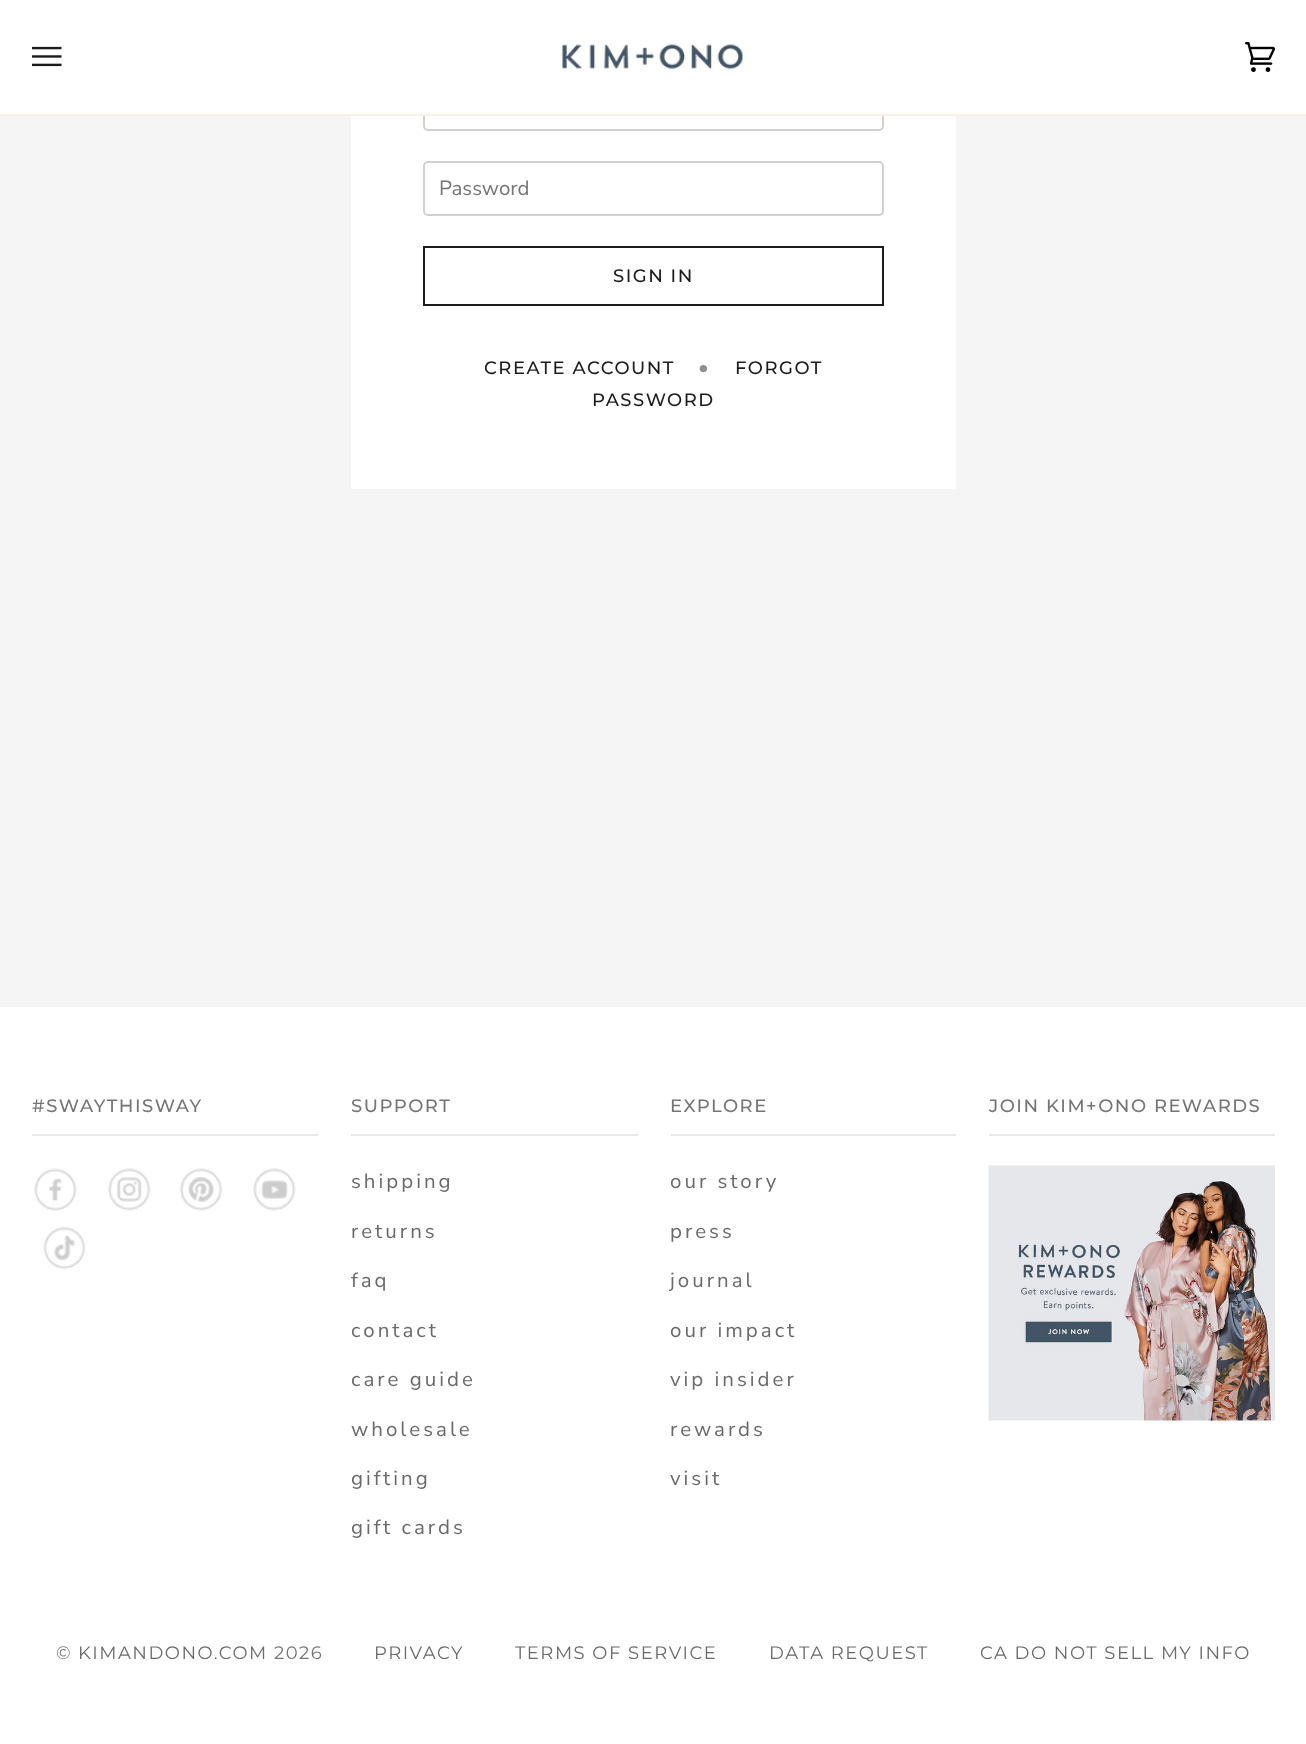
<!DOCTYPE html>
<meta charset="utf-8">
<style>body { margin: 0 } canvas { display: block }</style>
<canvas id="canvas" width="1306" height="1744"></canvas>
<img id="img1" src="img_01.png" hidden>
<img id="img2" src="img_02.png" hidden>
<img id="img3" src="img_03.png" hidden>
<img id="img4" src="img_04.png" hidden>
<img id="img5" src="img_05.png" hidden>
<img id="img6" src="img_06.png" hidden>
<img id="img7" src="img_07.png" hidden>
<img id="img8" src="img_08.png" hidden>
<img id="img9" src="img_09.png" hidden>
<script>
window.onload = function () {
	const canvas = document.getElementById("canvas");
	const ctx = canvas.getContext("2d");
	ctx.miterLimit = 4;
	ctx.fontKerning = "normal";
	function txt(s, x, y) {
		ctx.fillText(s, x, y);
	}
	function fill(x, y, w, h) {
		ctx.fillRect(x, y, w, h);
	}
	function img(id, x, y, w, h) {
		ctx.drawImage(document.getElementById(id), x, y, w, h);
	}

	ctx.fillStyle = "#FFFFFF";
	fill(0, 0, 1306, 1744);
	ctx.fillStyle = "#F5F5F5";
	fill(0, 116, 1306, 891);
	ctx.fillStyle = "#FFFFFF";
	fill(351, 116, 605, 373);
	ctx.beginPath();
	ctx.roundRect(424, 75, 459, 55, 4);
	ctx.strokeStyle = "#D2D1D1";
	ctx.lineWidth = 2;
	ctx.stroke();
	fill(423, 74, 461, 40);
	ctx.fillStyle = "#F8F0E7";
	fill(0, 114, 1306, 2);
	img("img1", 32, 46, 30, 21);
	img("img2", 562, 43, 181, 27);
	img("img3", 1245, 42, 30, 30);
	ctx.beginPath();
	ctx.roundRect(424, 162, 459, 53, 4);
	ctx.stroke();
	ctx.strokeStyle = "#1C1B1B";
	ctx.strokeRect(424, 247, 459, 58);
	ctx.fillStyle = "#E9E9E9";
	fill(32, 1134, 286, 2);
	img("img4", 34, 1168, 43, 43);
	img("img5", 108, 1168, 43, 43);
	img("img6", 180, 1168, 43, 43);
	img("img7", 253, 1168, 43, 43);
	img("img8", 43, 1226, 43, 44);
	fill(351, 1134, 287, 2);
	fill(671, 1134, 285, 2);
	fill(989, 1134, 286, 2);
	img("img9", 988, 1165, 287, 256);
	ctx.font = "20.5px Nunito Sans";
	ctx.fillStyle = "#757575";
	txt("Password", 439, 195);
	ctx.letterSpacing = "1.5px";
	ctx.font = "500 18px Montserrat";
	ctx.fillStyle = "#1C1B1B";
	txt("SIGN IN", 613, 282);
	txt("CREATE ACCOUNT", 484, 374);
	ctx.letterSpacing = "3px";
	ctx.font = "20.5px Nunito Sans";
	ctx.fillStyle = "#8E8D8D";
	txt("•", 698, 374);
	ctx.letterSpacing = "1.5px";
	ctx.font = "500 18px Montserrat";
	ctx.fillStyle = "#1C1B1B";
	txt("FORGOT", 735, 374);
	txt("PASSWORD", 592, 406);
	ctx.fillStyle = "#757575";
	txt("#SWAYTHISWAY", 32, 1112);
	txt("SUPPORT", 351, 1112);
	ctx.letterSpacing = "3px";
	ctx.font = "20.5px Nunito Sans";
	ctx.fillStyle = "#6A6A6A";
	txt("shipping", 351, 1188);
	txt("returns", 351, 1238);
	txt("faq", 351, 1287);
	txt("contact", 351, 1337);
	txt("care guide", 351, 1386);
	txt("wholesale", 351, 1436);
	txt("gifting", 351, 1485);
	txt("gift cards", 351, 1534);
	ctx.letterSpacing = "1.5px";
	ctx.font = "500 18px Montserrat";
	ctx.fillStyle = "#757575";
	txt("EXPLORE", 670, 1112);
	ctx.letterSpacing = "3px";
	ctx.font = "20.5px Nunito Sans";
	ctx.fillStyle = "#6A6A6A";
	txt("our story", 670, 1188);
	txt("press", 670, 1238);
	txt("journal", 670, 1287);
	txt("our impact", 670, 1337);
	txt("vip insider", 670, 1386);
	txt("rewards", 670, 1436);
	txt("visit", 670, 1485);
	ctx.letterSpacing = "1.5px";
	ctx.font = "500 18px Montserrat";
	ctx.fillStyle = "#757575";
	txt("JOIN KIM+ONO REWARDS", 989, 1112);
	ctx.font = "18px Montserrat";
	txt("©", 56, 1659);
	ctx.fillStyle = "#6A6A6A";
	txt("KIMANDONO.COM", 78, 1659);
	ctx.fillStyle = "#757575";
	txt("2026", 274, 1659);
	ctx.fillStyle = "#6A6A6A";
	txt("PRIVACY", 374, 1659);
	txt("TERMS OF SERVICE", 515, 1659);
	txt("DATA REQUEST", 769, 1659);
	txt("CA DO NOT SELL MY INFO", 980, 1659);
};
</script>
